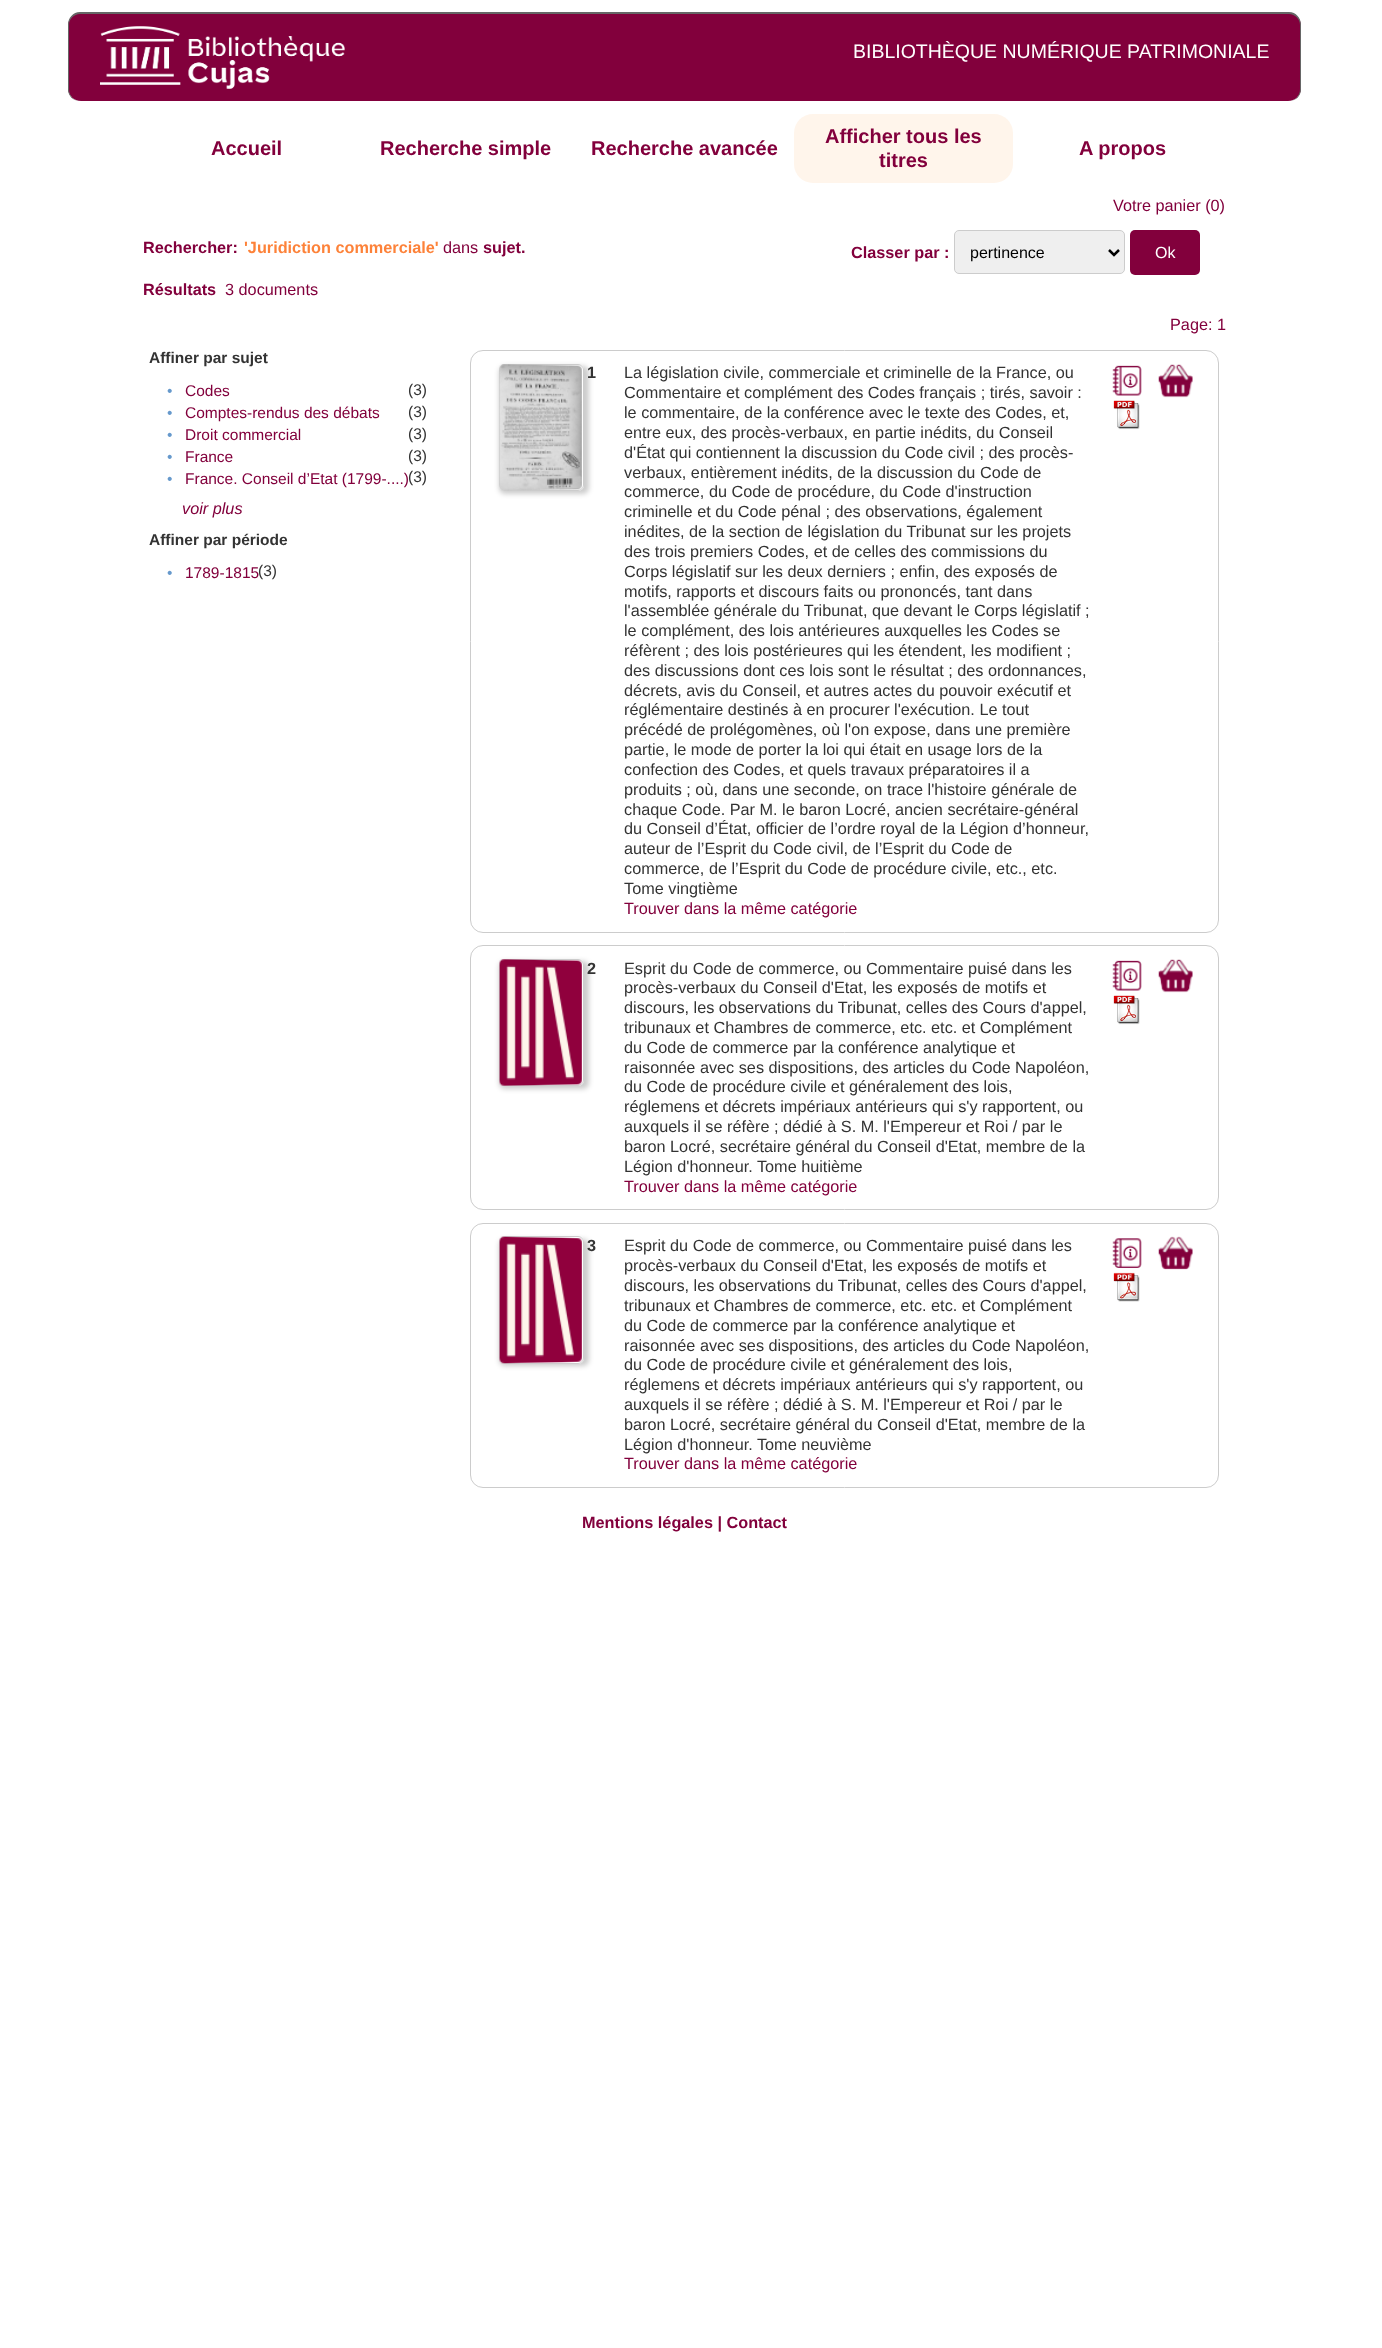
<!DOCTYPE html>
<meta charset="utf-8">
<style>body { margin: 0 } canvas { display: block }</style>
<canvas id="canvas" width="1382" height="2348"></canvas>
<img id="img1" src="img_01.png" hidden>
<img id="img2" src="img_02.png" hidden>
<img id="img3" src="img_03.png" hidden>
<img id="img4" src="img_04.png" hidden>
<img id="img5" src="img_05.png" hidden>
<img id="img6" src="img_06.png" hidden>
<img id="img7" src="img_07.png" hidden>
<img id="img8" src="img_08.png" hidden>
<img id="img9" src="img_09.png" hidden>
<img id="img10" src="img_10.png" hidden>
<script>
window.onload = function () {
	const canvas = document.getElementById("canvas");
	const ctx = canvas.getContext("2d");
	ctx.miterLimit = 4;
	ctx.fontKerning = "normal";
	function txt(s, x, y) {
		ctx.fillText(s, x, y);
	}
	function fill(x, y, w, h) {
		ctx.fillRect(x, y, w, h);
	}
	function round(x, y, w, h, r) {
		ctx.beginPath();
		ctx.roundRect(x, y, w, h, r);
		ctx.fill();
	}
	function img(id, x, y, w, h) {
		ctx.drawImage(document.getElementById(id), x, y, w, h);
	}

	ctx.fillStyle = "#FFFFFF";
	fill(0, 0, 1382, 2348);
	ctx.fillStyle = "#82003C";
	round(68, 13, 1233, 88, 13);
	ctx.fillStyle = "#666666";
	ctx.beginPath();
	ctx.moveTo(80, 12);
	ctx.lineTo(1289, 12);
	ctx.bezierCurveTo(1296, 12, 1301, 18, 1301, 25);
	ctx.lineTo(1301, 89);
	ctx.bezierCurveTo(1301, 96, 1296, 101, 1289, 101);
	ctx.lineTo(80, 101);
	ctx.bezierCurveTo(73, 101, 68, 96, 68, 89);
	ctx.lineTo(68, 25);
	ctx.bezierCurveTo(68, 18, 73, 12, 80, 12);
	ctx.closePath();
	ctx.moveTo(80, 14);
	ctx.lineTo(1289, 14);
	ctx.bezierCurveTo(1295, 14, 1300, 19, 1300, 25);
	ctx.lineTo(1300, 89);
	ctx.bezierCurveTo(1300, 96, 1295, 101, 1289, 101);
	ctx.lineTo(80, 101);
	ctx.bezierCurveTo(74, 101, 69, 96, 69, 89);
	ctx.lineTo(69, 25);
	ctx.bezierCurveTo(69, 19, 74, 14, 80, 14);
	ctx.closePath();
	ctx.fill("evenodd");
	img("img1", 100, 26, 245, 63);
	ctx.fillStyle = "#FFF5EB";
	round(794, 114, 219, 69, 19);
	ctx.fillStyle = "#EFEFEF";
	ctx.beginPath();
	ctx.roundRect(954.5, 230.5, 170, 43, 4.5);
	ctx.fill();
	ctx.strokeStyle = "#CCCCCC";
	ctx.stroke();
	ctx.beginPath();
	ctx.moveTo(1109, 250);
	ctx.lineTo(1114, 255);
	ctx.lineTo(1119, 250);
	ctx.strokeStyle = "#000000";
	ctx.lineWidth = 2.5;
	ctx.stroke();
	ctx.fillStyle = "#82003C";
	round(1130, 230, 70, 45, 5);
	ctx.beginPath();
	ctx.roundRect(470.5, 350.5, 748, 582, 12.5);
	ctx.strokeStyle = "#CCCCCC";
	ctx.lineWidth = 1;
	ctx.stroke();
	ctx.save();
	ctx.beginPath();
	ctx.moveTo(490, 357);
	ctx.lineTo(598, 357);
	ctx.lineTo(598, 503);
	ctx.lineTo(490, 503);
	ctx.closePath();
	ctx.moveTo(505, 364);
	ctx.lineTo(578, 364);
	ctx.bezierCurveTo(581.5, 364, 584, 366.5, 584, 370);
	ctx.lineTo(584, 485);
	ctx.bezierCurveTo(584, 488.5, 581.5, 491, 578, 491);
	ctx.lineTo(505, 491);
	ctx.bezierCurveTo(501.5, 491, 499, 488.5, 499, 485);
	ctx.lineTo(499, 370);
	ctx.bezierCurveTo(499, 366.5, 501.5, 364, 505, 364);
	ctx.closePath();
	ctx.clip("evenodd");
	ctx.fillStyle = "rgba(0, 0, 0, 0.2)";
	ctx.filter = "blur(2.5px)";
	ctx.beginPath();
	ctx.roundRect(499, 366, 90, 128, 6);
	ctx.fill();
	ctx.filter = "none";
	ctx.restore();
	ctx.beginPath();
	ctx.roundRect(499.5, 364.5, 84, 126, 5.5);
	ctx.stroke();
	img("img2", 499, 364, 83, 127);
	img("img3", 1112, 365, 30, 31);
	img("img4", 1113, 400, 27, 30);
	img("img5", 1158, 364, 35, 34);
	ctx.beginPath();
	ctx.roundRect(470.5, 945.5, 748, 264, 12.5);
	ctx.stroke();
	ctx.save();
	ctx.beginPath();
	ctx.moveTo(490, 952);
	ctx.lineTo(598, 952);
	ctx.lineTo(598, 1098);
	ctx.lineTo(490, 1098);
	ctx.closePath();
	ctx.moveTo(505, 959);
	ctx.lineTo(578, 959);
	ctx.bezierCurveTo(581.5, 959, 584, 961.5, 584, 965);
	ctx.lineTo(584, 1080);
	ctx.bezierCurveTo(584, 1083.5, 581.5, 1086, 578, 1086);
	ctx.lineTo(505, 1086);
	ctx.bezierCurveTo(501.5, 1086, 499, 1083.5, 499, 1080);
	ctx.lineTo(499, 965);
	ctx.bezierCurveTo(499, 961.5, 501.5, 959, 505, 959);
	ctx.closePath();
	ctx.clip("evenodd");
	ctx.fillStyle = "rgba(0, 0, 0, 0.2)";
	ctx.filter = "blur(2.5px)";
	ctx.beginPath();
	ctx.roundRect(499, 961, 90, 128, 6);
	ctx.fill();
	ctx.filter = "none";
	ctx.restore();
	ctx.beginPath();
	ctx.roundRect(499.5, 959.5, 84, 126, 5.5);
	ctx.stroke();
	img("img6", 499, 959, 83, 127);
	img("img3", 1112, 960, 30, 31);
	img("img4", 1113, 995, 27, 30);
	img("img5", 1158, 959, 35, 34);
	ctx.beginPath();
	ctx.roundRect(470.5, 1223.5, 748, 264, 12.5);
	ctx.stroke();
	ctx.save();
	ctx.beginPath();
	ctx.moveTo(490, 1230);
	ctx.lineTo(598, 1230);
	ctx.lineTo(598, 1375);
	ctx.lineTo(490, 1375);
	ctx.closePath();
	ctx.moveTo(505, 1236);
	ctx.lineTo(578, 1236);
	ctx.bezierCurveTo(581.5, 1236, 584, 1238.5, 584, 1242);
	ctx.lineTo(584, 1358);
	ctx.bezierCurveTo(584, 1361.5, 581.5, 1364, 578, 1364);
	ctx.lineTo(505, 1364);
	ctx.bezierCurveTo(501.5, 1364, 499, 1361.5, 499, 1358);
	ctx.lineTo(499, 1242);
	ctx.bezierCurveTo(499, 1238.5, 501.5, 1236, 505, 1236);
	ctx.closePath();
	ctx.clip("evenodd");
	ctx.fillStyle = "rgba(0, 0, 0, 0.2)";
	ctx.filter = "blur(2.5px)";
	ctx.beginPath();
	ctx.roundRect(499, 1239, 90, 127, 6);
	ctx.fill();
	ctx.filter = "none";
	ctx.restore();
	ctx.beginPath();
	ctx.roundRect(499.5, 1236.5, 84, 127, 5.5);
	ctx.stroke();
	img("img7", 499, 1236, 83, 128);
	img("img8", 1112, 1238, 30, 30);
	img("img9", 1113, 1272, 27, 30);
	img("img10", 1158, 1236, 35, 34);
	ctx.font = "19.5px Liberation Sans";
	ctx.fillStyle = "#FFFFFF";
	txt("BIBLIOTHÈQUE NUMÉRIQUE PATRIMONIALE", 853, 58);
	ctx.font = "bold 20px Liberation Sans";
	ctx.fillStyle = "#82003C";
	txt("Accueil", 211, 155);
	txt("Recherche simple", 380, 155);
	txt("Recherche avancée", 591, 155);
	txt("Afficher tous les", 825, 143);
	txt("titres", 879, 167);
	txt("A propos", 1079, 155);
	ctx.font = "16.25px Liberation Sans";
	txt("Votre panier (0)", 1113, 211);
	ctx.font = "bold 16.25px Liberation Sans";
	txt("Rechercher:", 143, 253);
	ctx.fillStyle = "#FD8239";
	txt("'Juridiction commerciale'", 244, 253);
	ctx.font = "16.25px Liberation Sans";
	ctx.fillStyle = "#82003C";
	txt("dans", 443, 253);
	ctx.font = "bold 16.25px Liberation Sans";
	txt("sujet.", 483, 253);
	txt("Classer par :", 851, 258);
	ctx.font = "16px Liberation Sans";
	ctx.fillStyle = "#000000";
	txt("pertinence", 970, 258);
	ctx.fillStyle = "#FFFFFF";
	txt("Ok", 1155, 258);
	ctx.font = "bold 16.25px Liberation Sans";
	ctx.fillStyle = "#82003C";
	txt("Résultats", 143, 295);
	ctx.font = "16.25px Liberation Sans";
	txt("3 documents", 225, 295);
	txt("Page: 1", 1170, 330);
	ctx.font = "bold 15.5px Liberation Sans";
	ctx.fillStyle = "#333333";
	txt("Affiner par sujet", 149, 363);
	ctx.font = "15.5px Liberation Sans";
	ctx.fillStyle = "#6699CC";
	txt("•", 167, 396);
	ctx.fillStyle = "#82003C";
	txt("Codes", 185, 396);
	ctx.fillStyle = "#333333";
	txt("(3)", 408, 395);
	ctx.fillStyle = "#6699CC";
	txt("•", 167, 418);
	ctx.fillStyle = "#82003C";
	txt("Comptes-rendus des débats", 185, 418);
	ctx.fillStyle = "#333333";
	txt("(3)", 408, 417);
	ctx.fillStyle = "#6699CC";
	txt("•", 167, 440);
	ctx.fillStyle = "#82003C";
	txt("Droit commercial", 185, 440);
	ctx.fillStyle = "#333333";
	txt("(3)", 408, 439);
	ctx.fillStyle = "#6699CC";
	txt("•", 167, 462);
	ctx.fillStyle = "#82003C";
	txt("France", 185, 462);
	ctx.fillStyle = "#333333";
	txt("(3)", 408, 461);
	ctx.fillStyle = "#6699CC";
	txt("•", 167, 484);
	ctx.fillStyle = "#82003C";
	txt("France. Conseil d’Etat (1799-....)", 185, 484);
	ctx.fillStyle = "#333333";
	txt("(3)", 408, 482);
	ctx.font = "italic 16.25px Liberation Sans";
	ctx.fillStyle = "#82003C";
	txt("voir plus", 182, 514);
	ctx.font = "bold 15.5px Liberation Sans";
	ctx.fillStyle = "#333333";
	txt("Affiner par période", 149, 545);
	ctx.font = "15.5px Liberation Sans";
	ctx.fillStyle = "#6699CC";
	txt("•", 167, 578);
	ctx.fillStyle = "#82003C";
	txt("1789-1815", 185, 578);
	ctx.fillStyle = "#333333";
	txt("(3)", 258, 576);
	ctx.font = "bold 16.25px Liberation Sans";
	txt("1", 587, 378);
	ctx.font = "16.25px Liberation Sans";
	txt("La législation civile, commerciale et criminelle de la France, ou", 624, 378);
	txt("Commentaire et complément des Codes français ; tirés, savoir :", 624, 398);
	txt("le commentaire, de la conférence avec le texte des Codes, et,", 624, 418);
	txt("entre eux, des procès-verbaux, en partie inédits, du Conseil", 624, 438);
	txt("d'État qui contiennent la discussion du Code civil ; des procès-", 624, 458);
	txt("verbaux, entièrement inédits, de la discussion du Code de", 624, 478);
	txt("commerce, du Code de procédure, du Code d'instruction", 624, 497);
	txt("criminelle et du Code pénal ; des observations, également", 624, 517);
	txt("inédites, de la section de législation du Tribunat sur les projets", 624, 537);
	txt("des trois premiers Codes, et de celles des commissions du", 624, 557);
	txt("Corps législatif sur les deux derniers ; enfin, des exposés de", 624, 577);
	txt("motifs, rapports et discours faits ou prononcés, tant dans", 624, 597);
	txt("l'assemblée générale du Tribunat, que devant le Corps législatif ;", 624, 616);
	txt("le complément, des lois antérieures auxquelles les Codes se", 624, 636);
	txt("réfèrent ; des lois postérieures qui les étendent, les modifient ;", 624, 656);
	txt("des discussions dont ces lois sont le résultat ; des ordonnances,", 624, 676);
	txt("décrets, avis du Conseil, et autres actes du pouvoir exécutif et", 624, 696);
	txt("réglémentaire destinés à en procurer l'exécution. Le tout", 624, 715);
	txt("précédé de prolégomènes, où l'on expose, dans une première", 624, 735);
	txt("partie, le mode de porter la loi qui était en usage lors de la", 624, 755);
	txt("confection des Codes, et quels travaux préparatoires il a", 624, 775);
	txt("produits ; où, dans une seconde, on trace l'histoire générale de", 624, 795);
	txt("chaque Code. Par M. le baron Locré, ancien secrétaire-général", 624, 815);
	txt("du Conseil d’État, officier de l’ordre royal de la Légion d’honneur,", 624, 834);
	txt("auteur de l’Esprit du Code civil, de l’Esprit du Code de", 624, 854);
	txt("commerce, de l’Esprit du Code de procédure civile, etc., etc.", 624, 874);
	txt("Tome vingtième", 624, 894);
	ctx.fillStyle = "#82003C";
	txt("Trouver dans la même catégorie", 624, 914);
	ctx.font = "bold 16.25px Liberation Sans";
	ctx.fillStyle = "#333333";
	txt("2", 587, 974);
	ctx.font = "16.25px Liberation Sans";
	txt("Esprit du Code de commerce, ou Commentaire puisé dans les", 624, 974);
	txt("procès-verbaux du Conseil d'Etat, les exposés de motifs et", 624, 993);
	txt("discours, les observations du Tribunat, celles des Cours d'appel,", 624, 1013);
	txt("tribunaux et Chambres de commerce, etc. etc. et Complément", 624, 1033);
	txt("du Code de commerce par la conférence analytique et", 624, 1053);
	txt("raisonnée avec ses dispositions, des articles du Code Napoléon,", 624, 1073);
	txt("du Code de procédure civile et généralement des lois,", 624, 1092);
	txt("réglemens et décrets impériaux antérieurs qui s'y rapportent, ou", 624, 1112);
	txt("auxquels il se réfère ; dédié à S. M. l'Empereur et Roi / par le", 624, 1132);
	txt("baron Locré, secrétaire général du Conseil d'Etat, membre de la", 624, 1152);
	txt("Légion d'honneur. Tome huitième", 624, 1172);
	ctx.fillStyle = "#82003C";
	txt("Trouver dans la même catégorie", 624, 1192);
	ctx.font = "bold 16.25px Liberation Sans";
	ctx.fillStyle = "#333333";
	txt("3", 587, 1251);
	ctx.font = "16.25px Liberation Sans";
	txt("Esprit du Code de commerce, ou Commentaire puisé dans les", 624, 1251);
	txt("procès-verbaux du Conseil d'Etat, les exposés de motifs et", 624, 1271);
	txt("discours, les observations du Tribunat, celles des Cours d'appel,", 624, 1291);
	txt("tribunaux et Chambres de commerce, etc. etc. et Complément", 624, 1311);
	txt("du Code de commerce par la conférence analytique et", 624, 1331);
	txt("raisonnée avec ses dispositions, des articles du Code Napoléon,", 624, 1351);
	txt("du Code de procédure civile et généralement des lois,", 624, 1370);
	txt("réglemens et décrets impériaux antérieurs qui s'y rapportent, ou", 624, 1390);
	txt("auxquels il se réfère ; dédié à S. M. l'Empereur et Roi / par le", 624, 1410);
	txt("baron Locré, secrétaire général du Conseil d'Etat, membre de la", 624, 1430);
	txt("Légion d'honneur. Tome neuvième", 624, 1450);
	ctx.fillStyle = "#82003C";
	txt("Trouver dans la même catégorie", 624, 1469);
	ctx.font = "bold 16.25px Liberation Sans";
	txt("Mentions légales | Contact", 582, 1528);
};
</script>
